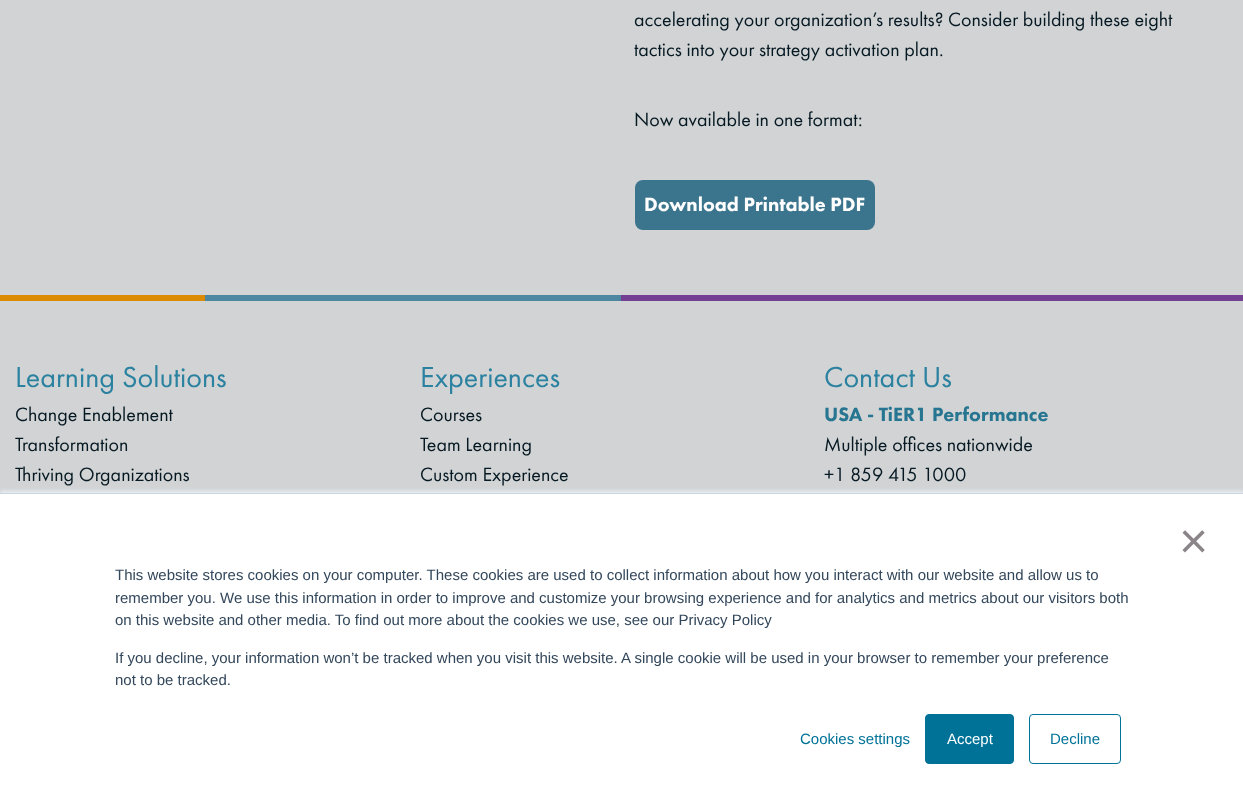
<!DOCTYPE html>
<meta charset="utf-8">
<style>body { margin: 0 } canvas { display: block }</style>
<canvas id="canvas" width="1243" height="796"></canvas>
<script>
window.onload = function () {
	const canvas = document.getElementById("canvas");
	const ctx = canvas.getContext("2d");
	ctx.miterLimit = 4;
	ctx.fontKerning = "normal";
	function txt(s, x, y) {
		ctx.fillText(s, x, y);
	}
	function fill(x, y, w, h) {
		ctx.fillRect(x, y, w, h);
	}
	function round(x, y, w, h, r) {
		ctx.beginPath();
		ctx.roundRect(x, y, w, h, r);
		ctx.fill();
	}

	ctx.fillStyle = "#D1D3D4";
	fill(0, 0, 1243, 796);
	ctx.fillStyle = "#3B748D";
	round(635, 180, 240, 50, 8);
	ctx.fillStyle = "#DD8A03";
	fill(0, 295, 205, 6);
	ctx.fillStyle = "#4C86A0";
	fill(205, 295, 416, 6);
	ctx.fillStyle = "#744091";
	fill(621, 295, 622, 6);
	ctx.fillStyle = "#EAF0F6";
	ctx.filter = "blur(2px)";
	ctx.beginPath();
	ctx.rect(0, 491, 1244, 304);
	ctx.fill();
	ctx.filter = "none";
	ctx.fillStyle = "#FFFFFF";
	fill(0, 494, 1243, 302);
	ctx.fillStyle = "#CBD6E2";
	fill(0, 493, 1243, 1);
	ctx.fillStyle = "#007298";
	ctx.beginPath();
	ctx.roundRect(925.5, 714.5, 88, 49, 3.5);
	ctx.fill();
	ctx.strokeStyle = "#007298";
	ctx.stroke();
	ctx.beginPath();
	ctx.roundRect(1029.5, 714.5, 91, 49, 3.5);
	ctx.stroke();
	ctx.font = "20px Futura PT";
	ctx.fillStyle = "#061923";
	txt("accelerating your organization’s results? Consider building these eight", 634, 26);
	txt("tactics into your strategy activation plan.", 634, 56);
	txt("Now available in one format:", 634, 126);
	ctx.font = "900 20px Futura PT";
	ctx.fillStyle = "#FFFFFF";
	txt("Download Printable PDF", 644, 211);
	ctx.font = "30px Futura PT";
	ctx.fillStyle = "#2A81A0";
	txt("Learning Solutions", 15, 387);
	ctx.font = "20px Futura PT";
	ctx.fillStyle = "#061923";
	txt("Change Enablement", 15, 421);
	txt("Transformation", 15, 451);
	txt("Thriving Organizations", 15, 481);
	ctx.font = "30px Futura PT";
	ctx.fillStyle = "#2A81A0";
	txt("Experiences", 420, 387);
	ctx.font = "20px Futura PT";
	ctx.fillStyle = "#061923";
	txt("Courses", 420, 421);
	txt("Team Learning", 420, 451);
	txt("Custom Experience", 420, 481);
	ctx.font = "30px Futura PT";
	ctx.fillStyle = "#2A81A0";
	txt("Contact Us", 824, 387);
	ctx.font = "900 20px Futura PT";
	ctx.fillStyle = "#267591";
	txt("USA - TiER1 Performance", 824, 421);
	ctx.font = "20px Futura PT";
	ctx.fillStyle = "#061923";
	txt("Multiple offices nationwide", 824, 451);
	txt("+1 859 415 1000", 824, 481);
	ctx.font = "50px Liberation Sans";
	ctx.fillStyle = "#8B8589";
	txt("×", 1179, 558);
	ctx.font = "15px Liberation Sans";
	ctx.fillStyle = "#33475B";
	txt("This website stores cookies on your computer. These cookies are used to collect information about how you interact with our website and allow us to", 115, 580);
	txt("remember you. We use this information in order to improve and customize your browsing experience and for analytics and metrics about our visitors both", 115, 603);
	txt("on this website and other media. To find out more about the cookies we use, see our Privacy Policy", 115, 625);
	txt("If you decline, your information won’t be tracked when you visit this website. A single cookie will be used in your browser to remember your preference", 115, 663);
	txt("not to be tracked.", 115, 685);
	ctx.fillStyle = "#007298";
	txt("Cookies settings", 800, 744);
	ctx.fillStyle = "#FFFFFF";
	txt("Accept", 947, 744);
	ctx.fillStyle = "#007298";
	txt("Decline", 1050, 744);
};
</script>
